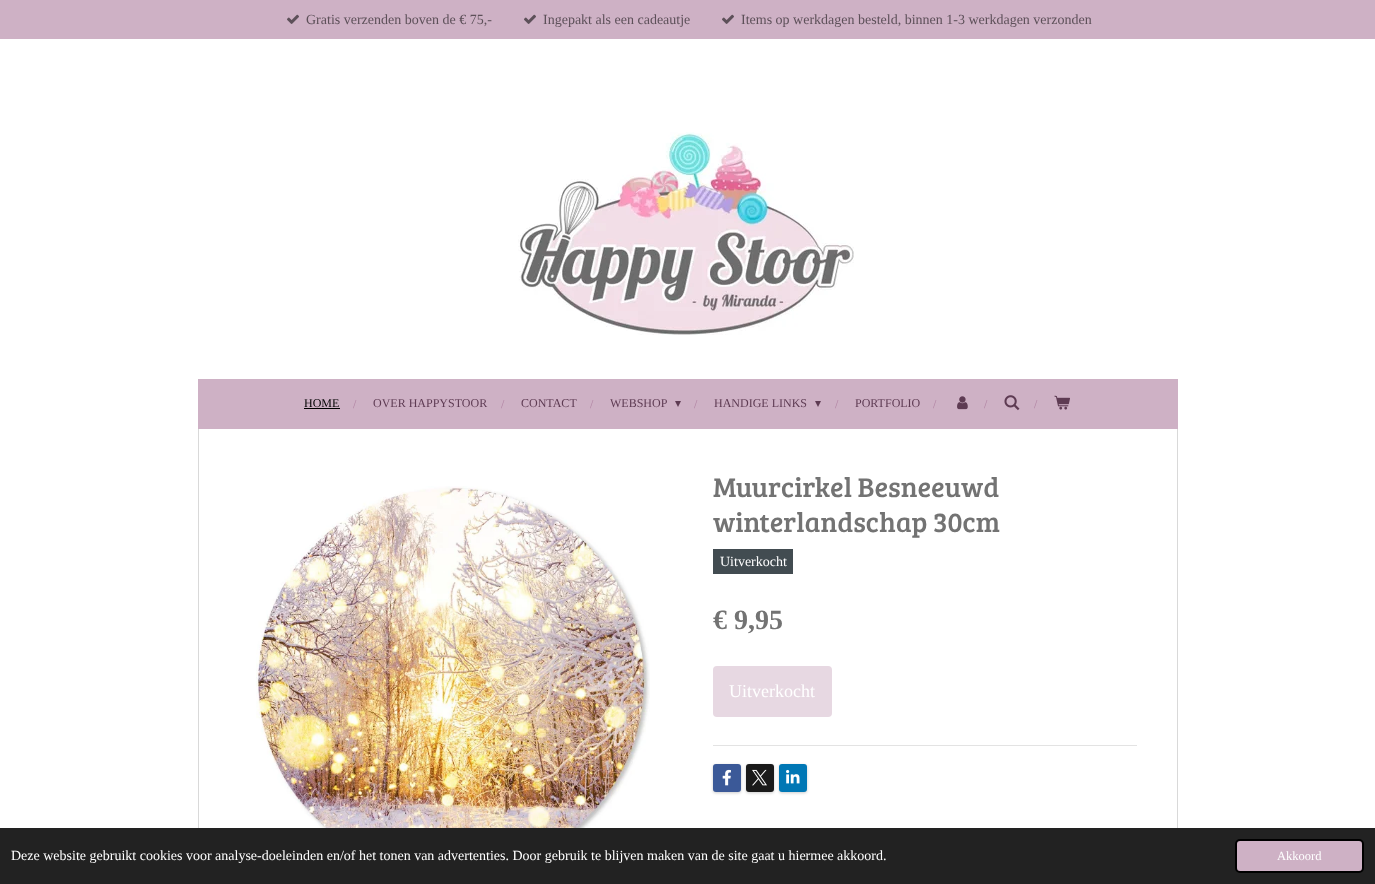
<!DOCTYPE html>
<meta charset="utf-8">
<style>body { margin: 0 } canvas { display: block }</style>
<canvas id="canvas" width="1375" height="884"></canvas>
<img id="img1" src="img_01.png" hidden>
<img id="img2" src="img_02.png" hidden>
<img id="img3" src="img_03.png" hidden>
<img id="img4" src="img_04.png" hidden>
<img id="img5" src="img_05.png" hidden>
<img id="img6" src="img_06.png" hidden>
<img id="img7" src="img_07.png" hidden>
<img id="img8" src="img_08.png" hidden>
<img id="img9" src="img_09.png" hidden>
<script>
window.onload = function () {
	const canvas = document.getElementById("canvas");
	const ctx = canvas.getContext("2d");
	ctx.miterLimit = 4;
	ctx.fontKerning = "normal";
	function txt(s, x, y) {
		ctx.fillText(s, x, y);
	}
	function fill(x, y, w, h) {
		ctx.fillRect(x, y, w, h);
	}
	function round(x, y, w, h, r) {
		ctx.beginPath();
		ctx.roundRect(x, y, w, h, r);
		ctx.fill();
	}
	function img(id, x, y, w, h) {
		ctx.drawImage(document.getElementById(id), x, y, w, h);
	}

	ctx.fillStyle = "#FFFFFF";
	fill(0, 0, 1375, 884);
	ctx.fillStyle = "#CEB1C5";
	fill(0, 0, 1375, 39);
	img("img1", 287, 14, 12, 10);
	img("img1", 524, 14, 12, 10);
	img("img1", 722, 14, 12, 10);
	img("img2", 518, 132, 336, 203);
	fill(198, 379, 980, 50);
	ctx.fillStyle = "#000000";
	fill(304, 408, 36, 1);
	img("img3", 957, 396, 11, 14);
	img("img4", 1004, 395, 16, 16);
	img("img5", 1054, 395, 16, 15);
	ctx.fillStyle = "#D9D9D9";
	fill(1177, 429, 1, 399);
	fill(198, 429, 1, 399);
	img("img6", 256, 486, 394, 342);
	ctx.fillStyle = "#424C51";
	fill(713, 549, 80, 25);
	ctx.fillStyle = "#E7D8E2";
	round(713, 666, 119, 51, 4);
	ctx.fillStyle = "#E3E3E3";
	fill(713, 745, 424, 1);
	ctx.fillStyle = "rgba(0, 0, 0, 0.2)";
	ctx.filter = "blur(1.5px)";
	ctx.beginPath();
	ctx.roundRect(713, 765, 28, 28, 3);
	ctx.fill();
	ctx.filter = "none";
	ctx.fillStyle = "#3B5998";
	round(713, 764, 28, 28, 3);
	img("img7", 722, 769, 9, 17);
	ctx.fillStyle = "rgba(0, 0, 0, 0.2)";
	ctx.filter = "blur(1.5px)";
	ctx.beginPath();
	ctx.roundRect(746, 765, 28, 28, 3);
	ctx.fill();
	ctx.filter = "none";
	ctx.fillStyle = "#1A1A1A";
	round(746, 764, 28, 28, 3);
	img("img8", 752, 769, 15, 17);
	ctx.fillStyle = "rgba(0, 0, 0, 0.2)";
	ctx.filter = "blur(1.5px)";
	ctx.beginPath();
	ctx.roundRect(779, 765, 28, 28, 3);
	ctx.fill();
	ctx.filter = "none";
	ctx.fillStyle = "#0077B5";
	round(779, 764, 28, 28, 3);
	img("img9", 786, 769, 14, 15);
	ctx.fillStyle = "#222222";
	fill(0, 828, 1375, 56);
	ctx.fillStyle = "#CEB1C5";
	ctx.beginPath();
	ctx.roundRect(1236, 840, 127, 32, 4);
	ctx.fill();
	ctx.strokeStyle = "#000000";
	ctx.lineWidth = 2;
	ctx.stroke();
	ctx.font = "14px Liberation Serif";
	ctx.fillStyle = "#5D5059";
	txt("Gratis verzenden boven de € 75,-", 306, 24);
	txt("Ingepakt als een cadeautje", 543, 24);
	txt("Items op werkdagen besteld, binnen 1-3 werkdagen verzonden", 741, 24);
	ctx.font = "12px Liberation Serif";
	ctx.fillStyle = "#000000";
	txt("HOME", 304, 407);
	ctx.fillStyle = "#B082A2";
	txt("/", 353, 408);
	ctx.fillStyle = "#5E3B53";
	txt("OVER HAPPYSTOOR", 373, 407);
	ctx.fillStyle = "#B082A2";
	txt("/", 501, 408);
	ctx.fillStyle = "#5E3B53";
	txt("CONTACT", 521, 407);
	ctx.fillStyle = "#B082A2";
	txt("/", 590, 408);
	ctx.fillStyle = "#5E3B53";
	txt("WEBSHOP", 610, 407);
	ctx.font = "12px DejaVu Sans";
	txt("▾", 675, 407);
	ctx.font = "12px Liberation Serif";
	ctx.fillStyle = "#B082A2";
	txt("/", 694, 408);
	ctx.fillStyle = "#5E3B53";
	txt("HANDIGE LINKS", 714, 407);
	ctx.font = "12px DejaVu Sans";
	txt("▾", 815, 407);
	ctx.font = "12px Liberation Serif";
	ctx.fillStyle = "#B082A2";
	txt("/", 835, 408);
	ctx.fillStyle = "#5E3B53";
	txt("PORTFOLIO", 855, 407);
	ctx.fillStyle = "#B082A2";
	txt("/", 933, 408);
	txt("/", 984, 408);
	txt("/", 1034, 408);
	ctx.font = "28px Bree Serif";
	ctx.fillStyle = "#737373";
	txt("Muurcirkel Besneeuwd", 713, 497);
	txt("winterlandschap 30cm", 713, 532);
	ctx.font = "14px Liberation Serif";
	ctx.fillStyle = "#FFFFFF";
	txt("Uitverkocht", 720, 566);
	ctx.font = "bold 28px Liberation Serif";
	ctx.fillStyle = "#737373";
	txt("€ 9,95", 713, 629);
	ctx.font = "18px Liberation Serif";
	ctx.fillStyle = "#FFFFFF";
	txt("Uitverkocht", 729, 697);
	ctx.font = "14px Liberation Serif";
	txt("Deze website gebruikt cookies voor analyse-doeleinden en/of het tonen van advertenties. Door gebruik te blijven maken van de site gaat u hiermee akkoord.", 11, 860);
	ctx.font = "12.5px Liberation Serif";
	txt("Akkoord", 1277, 860);
};
</script>
